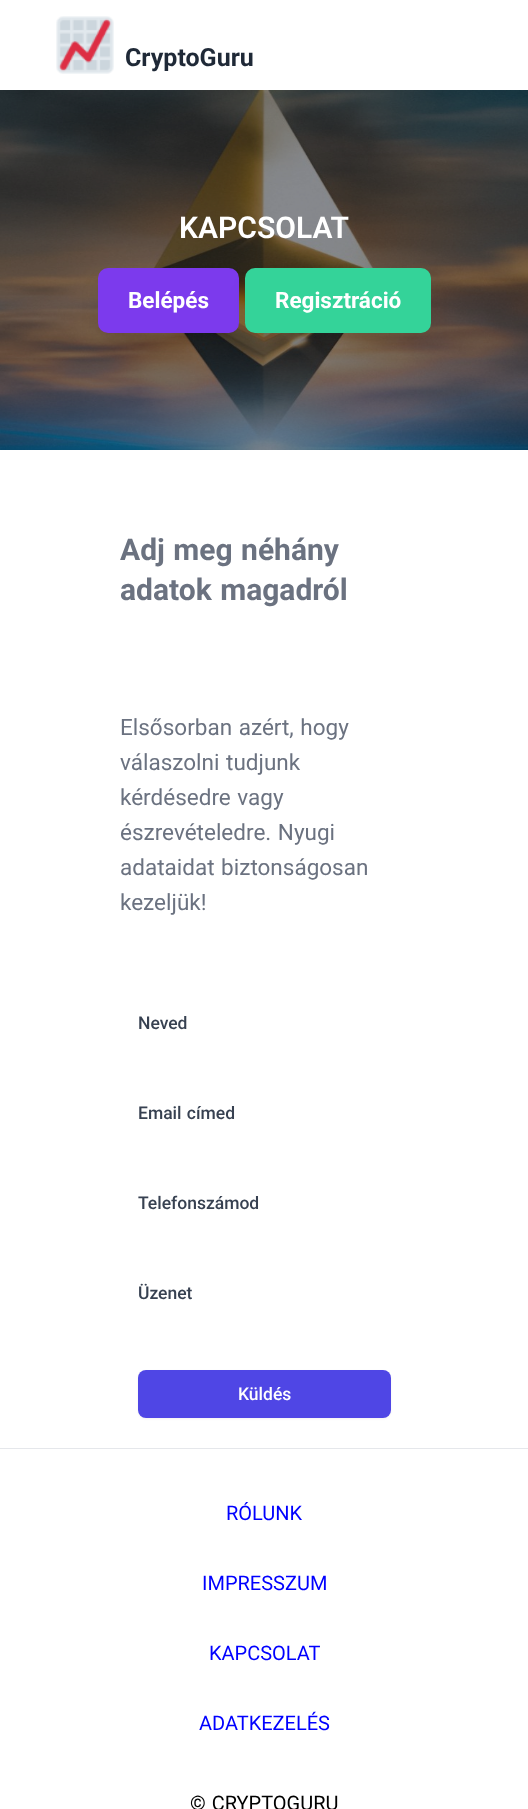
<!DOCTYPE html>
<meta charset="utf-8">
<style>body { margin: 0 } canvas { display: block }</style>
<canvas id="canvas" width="528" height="1809"></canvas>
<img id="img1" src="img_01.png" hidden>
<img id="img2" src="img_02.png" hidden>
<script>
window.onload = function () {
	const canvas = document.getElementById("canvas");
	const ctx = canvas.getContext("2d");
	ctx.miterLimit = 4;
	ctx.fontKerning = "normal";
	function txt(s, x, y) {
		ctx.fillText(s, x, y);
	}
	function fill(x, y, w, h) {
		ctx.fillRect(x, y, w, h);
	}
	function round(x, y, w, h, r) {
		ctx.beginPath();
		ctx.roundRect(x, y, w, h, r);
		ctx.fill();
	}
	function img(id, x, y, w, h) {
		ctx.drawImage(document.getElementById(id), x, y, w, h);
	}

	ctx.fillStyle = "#FFFFFF";
	fill(0, 0, 528, 1809);
	img("img1", 56, 16, 58, 58);
	img("img2", 0, 90, 528, 360);
	ctx.fillStyle = "rgba(0, 0, 0, 0.1)";
	ctx.filter = "blur(9.5px)";
	ctx.beginPath();
	ctx.roundRect(101, 284, 134, 57, 6);
	ctx.fill();
	ctx.filter = "none";
	ctx.fillStyle = "#7C3AED";
	round(98, 268, 141, 65, 10);
	ctx.fillStyle = "rgba(0, 0, 0, 0.1)";
	ctx.filter = "blur(9.5px)";
	ctx.beginPath();
	ctx.roundRect(249, 284, 179, 57, 6);
	ctx.fill();
	ctx.filter = "none";
	ctx.fillStyle = "#34D399";
	round(245, 268, 186, 65, 10);
	ctx.fillStyle = "rgba(0, 0, 0, 0.05)";
	ctx.filter = "blur(1px)";
	ctx.beginPath();
	ctx.roundRect(138, 1371, 253, 48, 8);
	ctx.fill();
	ctx.filter = "none";
	ctx.fillStyle = "#4F46E5";
	round(138, 1370, 253, 48, 8);
	ctx.fillStyle = "#E5E7EB";
	fill(0, 1448, 528, 1);
	ctx.font = "bold 25px Roboto";
	ctx.fillStyle = "#1F2937";
	txt("CryptoGuru", 125, 66);
	ctx.font = "600 30px Roboto";
	ctx.fillStyle = "#FFFFFF";
	txt("KAPCSOLAT", 179, 238);
	ctx.font = "bold 22.5px Roboto";
	txt("Belépés", 128, 308);
	txt("Regisztráció", 275, 308);
	ctx.wordSpacing = "1px";
	ctx.font = "bold 30px Roboto";
	ctx.fillStyle = "#6B7280";
	txt("Adj meg néhány", 120, 560);
	txt("adatok magadról", 120, 600);
	ctx.font = "22.5px Roboto";
	txt("Elsősorban azért, hogy", 120, 735);
	txt("válaszolni tudjunk", 120, 770);
	txt("kérdésedre vagy", 120, 805);
	txt("észrevételedre. Nyugi", 120, 840);
	txt("adataidat biztonságosan", 120, 875);
	ctx.wordSpacing = "0px";
	txt("kezeljük!", 120, 910);
	ctx.font = "500 17.5px Roboto";
	ctx.fillStyle = "#374151";
	txt("Neved", 138, 1029);
	ctx.wordSpacing = "1px";
	txt("Email címed", 138, 1119);
	ctx.wordSpacing = "0px";
	txt("Telefonszámod", 138, 1209);
	txt("Üzenet", 138, 1299);
	ctx.fillStyle = "#FFFFFF";
	txt("Küldés", 238, 1400);
	ctx.font = "20px Roboto";
	ctx.fillStyle = "#0000FF";
	txt("RÓLUNK", 226, 1520);
	txt("IMPRESSZUM", 202, 1590);
	txt("KAPCSOLAT", 209, 1660);
	txt("ADATKEZELÉS", 199, 1730);
	ctx.wordSpacing = "1px";
	ctx.fillStyle = "#000000";
	txt("© CRYPTOGURU", 190, 1810);
};
</script>
